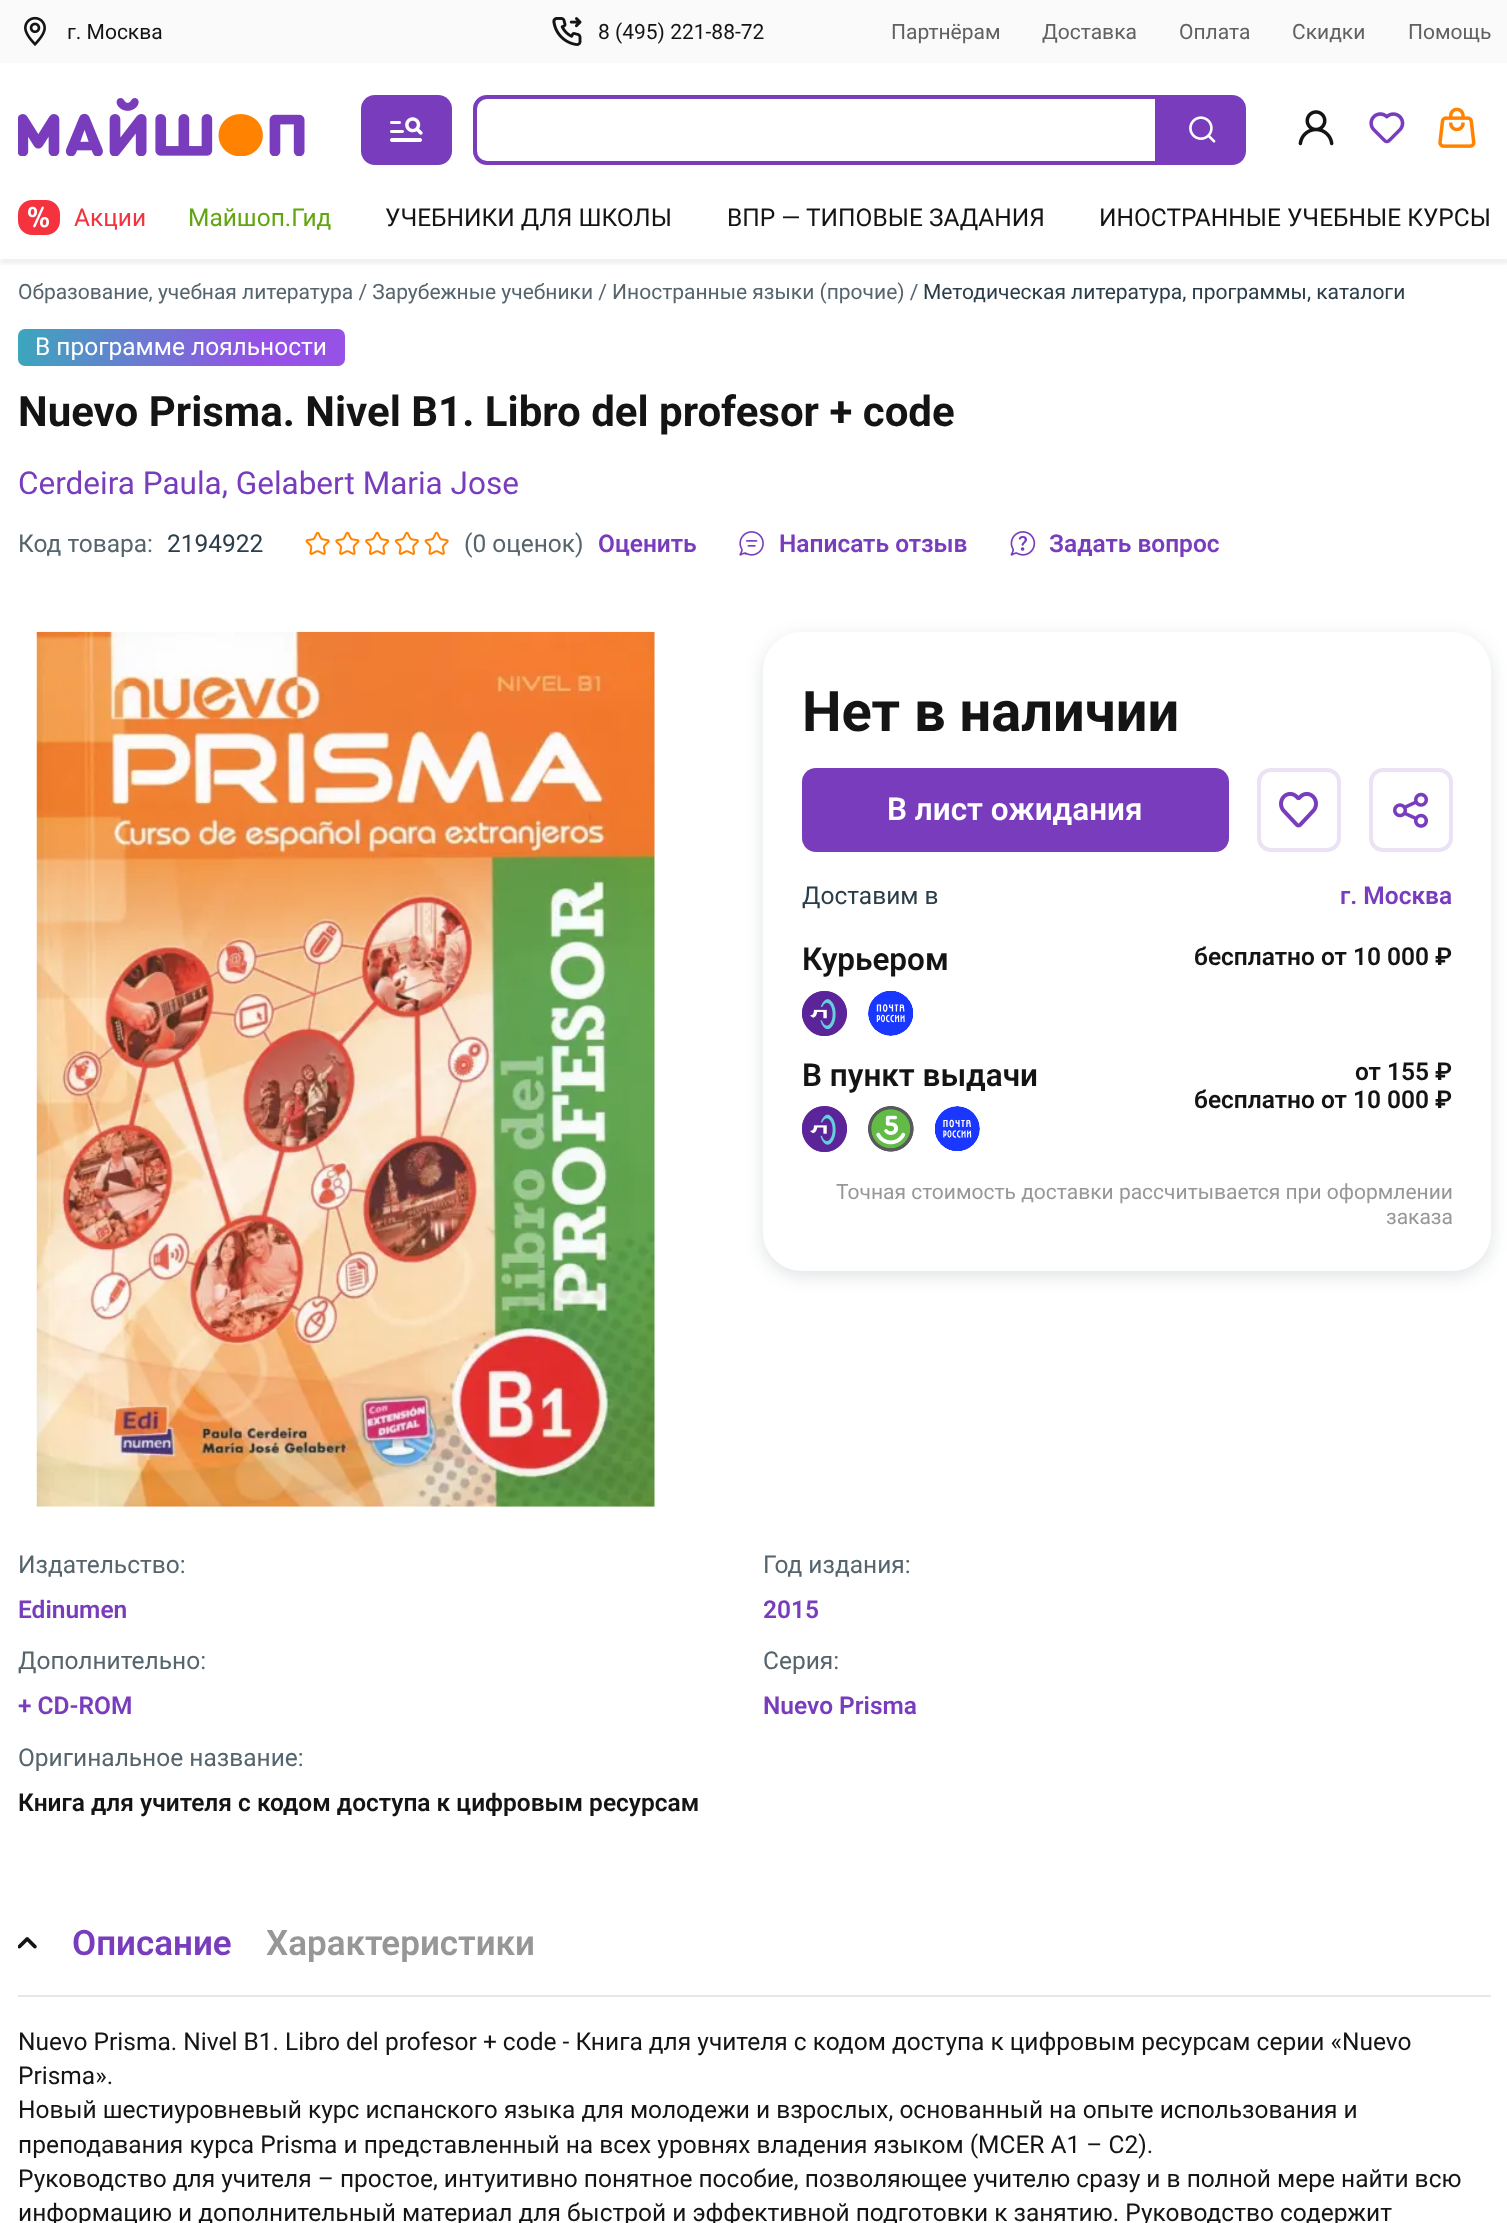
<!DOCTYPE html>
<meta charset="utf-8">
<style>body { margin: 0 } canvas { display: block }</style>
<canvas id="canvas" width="1507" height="2223"></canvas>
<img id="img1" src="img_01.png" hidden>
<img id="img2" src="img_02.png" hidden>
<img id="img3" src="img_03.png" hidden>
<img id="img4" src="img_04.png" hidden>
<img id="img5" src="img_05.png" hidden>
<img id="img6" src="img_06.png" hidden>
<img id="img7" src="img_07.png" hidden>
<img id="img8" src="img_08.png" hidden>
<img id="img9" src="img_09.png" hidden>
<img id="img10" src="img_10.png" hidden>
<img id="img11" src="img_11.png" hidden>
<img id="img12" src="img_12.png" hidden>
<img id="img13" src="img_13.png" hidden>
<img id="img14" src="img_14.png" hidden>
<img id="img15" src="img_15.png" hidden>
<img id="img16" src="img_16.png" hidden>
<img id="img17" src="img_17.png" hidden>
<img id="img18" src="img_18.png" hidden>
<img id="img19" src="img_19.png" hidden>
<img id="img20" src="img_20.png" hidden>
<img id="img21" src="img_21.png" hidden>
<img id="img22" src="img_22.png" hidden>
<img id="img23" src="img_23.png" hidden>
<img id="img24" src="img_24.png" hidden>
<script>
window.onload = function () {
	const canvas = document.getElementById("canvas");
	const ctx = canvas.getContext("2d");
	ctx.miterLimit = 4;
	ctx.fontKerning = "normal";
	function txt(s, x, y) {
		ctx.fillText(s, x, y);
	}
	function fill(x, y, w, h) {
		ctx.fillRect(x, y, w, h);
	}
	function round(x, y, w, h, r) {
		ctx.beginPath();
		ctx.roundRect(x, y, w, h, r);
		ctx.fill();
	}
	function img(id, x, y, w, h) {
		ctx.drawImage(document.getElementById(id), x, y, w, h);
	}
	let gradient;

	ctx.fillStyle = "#FFFFFF";
	fill(0, 0, 1507, 2223);
	ctx.save();
	ctx.beginPath();
	ctx.rect(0, 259, 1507, 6);
	ctx.clip();
	ctx.fillStyle = "rgba(42, 61, 72, 0.08)";
	ctx.filter = "blur(2px)";
	ctx.beginPath();
	ctx.rect(0, 5, 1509, 259);
	ctx.fill();
	ctx.filter = "none";
	ctx.restore();
	ctx.fillStyle = "#FAFAFA";
	fill(0, 0, 1507, 63);
	img("img1", 24, 16, 22, 30);
	img("img2", 552, 17, 30, 29);
	img("img3", 18, 98, 287, 58);
	ctx.fillStyle = "#783CBD";
	round(361, 95, 91, 70, 14);
	img("img4", 390, 117, 33, 25);
	ctx.beginPath();
	ctx.roundRect(475, 97, 682, 66, [12, 0, 0, 12]);
	ctx.strokeStyle = "#783CBD";
	ctx.lineWidth = 4;
	ctx.stroke();
	ctx.beginPath();
	ctx.roundRect(1159, 95, 87, 70, [0, 14, 14, 0]);
	ctx.fill();
	img("img5", 1189, 116, 27, 27);
	img("img6", 1298, 110, 36, 36);
	img("img7", 1369, 112, 36, 32);
	img("img8", 1438, 107, 38, 41);
	img("img9", 18, 200, 42, 35);
	gradient = ctx.createLinearGradient(18, 347, 345, 347);
	gradient.addColorStop(0, "#3CA6BD");
	gradient.addColorStop(0.74, "#9651E6");
	ctx.fillStyle = gradient;
	round(18, 329, 327, 37, 7);
	img("img10", 305, 531, 25, 24);
	img("img11", 335, 531, 25, 24);
	img("img12", 365, 531, 25, 24);
	img("img13", 394, 531, 25, 24);
	img("img10", 424, 531, 25, 24);
	img("img14", 739, 531, 25, 25);
	img("img15", 1010, 531, 26, 25);
	img("img16", 36, 631, 619, 876);
	ctx.save();
	ctx.beginPath();
	ctx.moveTo(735, 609);
	ctx.lineTo(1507, 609);
	ctx.lineTo(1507, 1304);
	ctx.lineTo(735, 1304);
	ctx.closePath();
	ctx.moveTo(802, 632);
	ctx.lineTo(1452, 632);
	ctx.bezierCurveTo(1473.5, 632, 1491, 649.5, 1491, 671);
	ctx.lineTo(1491, 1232);
	ctx.bezierCurveTo(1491, 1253.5, 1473.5, 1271, 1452, 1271);
	ctx.lineTo(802, 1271);
	ctx.bezierCurveTo(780.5, 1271, 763, 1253.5, 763, 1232);
	ctx.lineTo(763, 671);
	ctx.bezierCurveTo(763, 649.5, 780.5, 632, 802, 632);
	ctx.closePath();
	ctx.clip("evenodd");
	ctx.fillStyle = "rgba(42, 61, 72, 0.15)";
	ctx.filter = "blur(9px)";
	ctx.beginPath();
	ctx.roundRect(763, 637, 728, 639, 39);
	ctx.fill();
	ctx.filter = "none";
	ctx.restore();
	ctx.fillStyle = "#783CBD";
	round(802, 768, 427, 84, 14);
	ctx.beginPath();
	ctx.roundRect(1259, 770, 80, 80, 12);
	ctx.strokeStyle = "#EBE2F5";
	ctx.stroke();
	img("img17", 1279, 791, 39, 37);
	ctx.beginPath();
	ctx.roundRect(1371, 770, 80, 80, 12);
	ctx.stroke();
	img("img18", 1393, 792, 35, 36);
	img("img19", 802, 991, 45, 45);
	img("img20", 868, 991, 45, 45);
	img("img21", 802, 1106, 45, 46);
	img("img22", 868, 1106, 46, 46);
	img("img23", 935, 1106, 45, 45);
	ctx.fillStyle = "#E5E7E9";
	fill(18, 1995, 1473, 2);
	img("img24", 18, 1937, 19, 12);
	ctx.font = "21px Roboto";
	ctx.fillStyle = "#141414";
	txt("г. Москва", 67, 39);
	txt("8 (495) 221-88-72", 598, 39);
	ctx.fillStyle = "#616161";
	txt("Партнёрам", 891, 39);
	txt("Доставка", 1042, 39);
	txt("Оплата", 1179, 39);
	txt("Скидки", 1292, 39);
	txt("Помощь", 1408, 39);
	ctx.font = "24.5px Roboto";
	ctx.fillStyle = "#F5333F";
	txt("Акции", 74, 226);
	ctx.fillStyle = "#61A60E";
	txt("Майшоп.Гид", 188, 226);
	ctx.fillStyle = "#141414";
	txt("УЧЕБНИКИ ДЛЯ ШКОЛЫ", 385, 226);
	txt("ВПР — ТИПОВЫЕ ЗАДАНИЯ", 727, 226);
	txt("ИНОСТРАННЫЕ УЧЕБНЫЕ КУРСЫ", 1099, 226);
	ctx.font = "21px Roboto";
	ctx.fillStyle = "#55646D";
	txt("Образование, учебная литература / Зарубежные учебники / Иностранные языки (прочие) /", 18, 299);
	ctx.fillStyle = "#2A3D48";
	txt("Методическая литература, программы, каталоги", 923, 299);
	ctx.font = "24.5px Roboto";
	ctx.fillStyle = "#FFFFFF";
	txt("В программе лояльности", 35, 355);
	ctx.font = "bold 42px Roboto";
	ctx.fillStyle = "#141414";
	txt("Nuevo Prisma. Nivel B1. Libro del profesor + code", 18, 426);
	ctx.font = "31.5px Roboto";
	ctx.fillStyle = "#783CBD";
	txt("Cerdeira Paula, Gelabert Maria Jose", 18, 494);
	ctx.font = "24.5px Roboto";
	ctx.fillStyle = "#55646D";
	txt("Код товара:", 18, 552);
	ctx.fillStyle = "#2A3D48";
	txt("2194922", 167, 552);
	ctx.fillStyle = "#55646D";
	txt("(0 оценок)", 464, 552);
	ctx.font = "600 24.5px Roboto";
	ctx.fillStyle = "#783CBD";
	txt("Оценить", 598, 552);
	txt("Написать отзыв", 779, 552);
	txt("Задать вопрос", 1049, 552);
	ctx.font = "bold 56px Roboto";
	ctx.fillStyle = "#141414";
	txt("Нет в наличии", 802, 731);
	ctx.font = "600 31.5px Roboto";
	ctx.fillStyle = "#FFFFFF";
	txt("В лист ожидания", 887, 820);
	ctx.font = "24.5px Roboto";
	ctx.fillStyle = "#2A3D48";
	txt("Доставим в", 802, 904);
	ctx.font = "600 24.5px Roboto";
	ctx.fillStyle = "#783CBD";
	txt("г. Москва", 1340, 904);
	ctx.font = "600 31.5px Roboto";
	ctx.fillStyle = "#141414";
	txt("Курьером", 802, 970);
	ctx.font = "600 24.5px Roboto";
	txt("бесплатно от 10 000 ₽", 1194, 965);
	ctx.font = "600 31.5px Roboto";
	txt("В пункт выдачи", 802, 1086);
	ctx.font = "600 24.5px Roboto";
	txt("от 155 ₽", 1355, 1080);
	txt("бесплатно от 10 000 ₽", 1194, 1108);
	ctx.font = "21px Roboto";
	ctx.fillStyle = "#979797";
	txt("Точная стоимость доставки рассчитывается при оформлении", 836, 1199);
	txt("заказа", 1386, 1224);
	ctx.font = "24.5px Roboto";
	ctx.fillStyle = "#55646D";
	txt("Издательство:", 18, 1573);
	ctx.font = "600 24.5px Roboto";
	ctx.fillStyle = "#783CBD";
	txt("Edinumen", 18, 1618);
	ctx.font = "24.5px Roboto";
	ctx.fillStyle = "#55646D";
	txt("Дополнительно:", 18, 1669);
	ctx.font = "600 24.5px Roboto";
	ctx.fillStyle = "#783CBD";
	txt("+ CD-ROM", 18, 1714);
	ctx.font = "24.5px Roboto";
	ctx.fillStyle = "#55646D";
	txt("Оригинальное название:", 18, 1766);
	ctx.font = "600 24.5px Roboto";
	ctx.fillStyle = "#141414";
	txt("Книга для учителя с кодом доступа к цифровым ресурсам", 18, 1811);
	ctx.font = "24.5px Roboto";
	ctx.fillStyle = "#55646D";
	txt("Год издания:", 763, 1573);
	ctx.font = "600 24.5px Roboto";
	ctx.fillStyle = "#783CBD";
	txt("2015", 763, 1618);
	ctx.font = "24.5px Roboto";
	ctx.fillStyle = "#55646D";
	txt("Cерия:", 763, 1669);
	ctx.font = "600 24.5px Roboto";
	ctx.fillStyle = "#783CBD";
	txt("Nuevo Prisma", 763, 1714);
	ctx.font = "600 35px Roboto";
	txt("Описание", 72, 1955);
	ctx.fillStyle = "#979797";
	txt("Характеристики", 266, 1955);
	ctx.font = "24.5px Roboto";
	ctx.fillStyle = "#141414";
	txt("Nuevo Prisma. Nivel B1. Libro del profesor + code - Книга для учителя с кодом доступа к цифровым ресурсам серии «Nuevo", 18, 2050);
	txt("Prisma».", 18, 2084);
	txt("Новый шестиуровневый курс испанского языка для молодежи и взрослых, основанный на опыте использования и", 18, 2118);
	txt("преподавания курса Prisma и представленный на всех уровнях владения языком (MCER A1 – C2).", 18, 2153);
	txt("Руководство для учителя – простое, интуитивно понятное пособие, позволяющее учителю сразу и в полной мере найти всю", 18, 2187);
	txt("информацию и дополнительный материал для быстрой и эффективной подготовки к занятию. Руководство содержит", 18, 2221);
};
</script>
